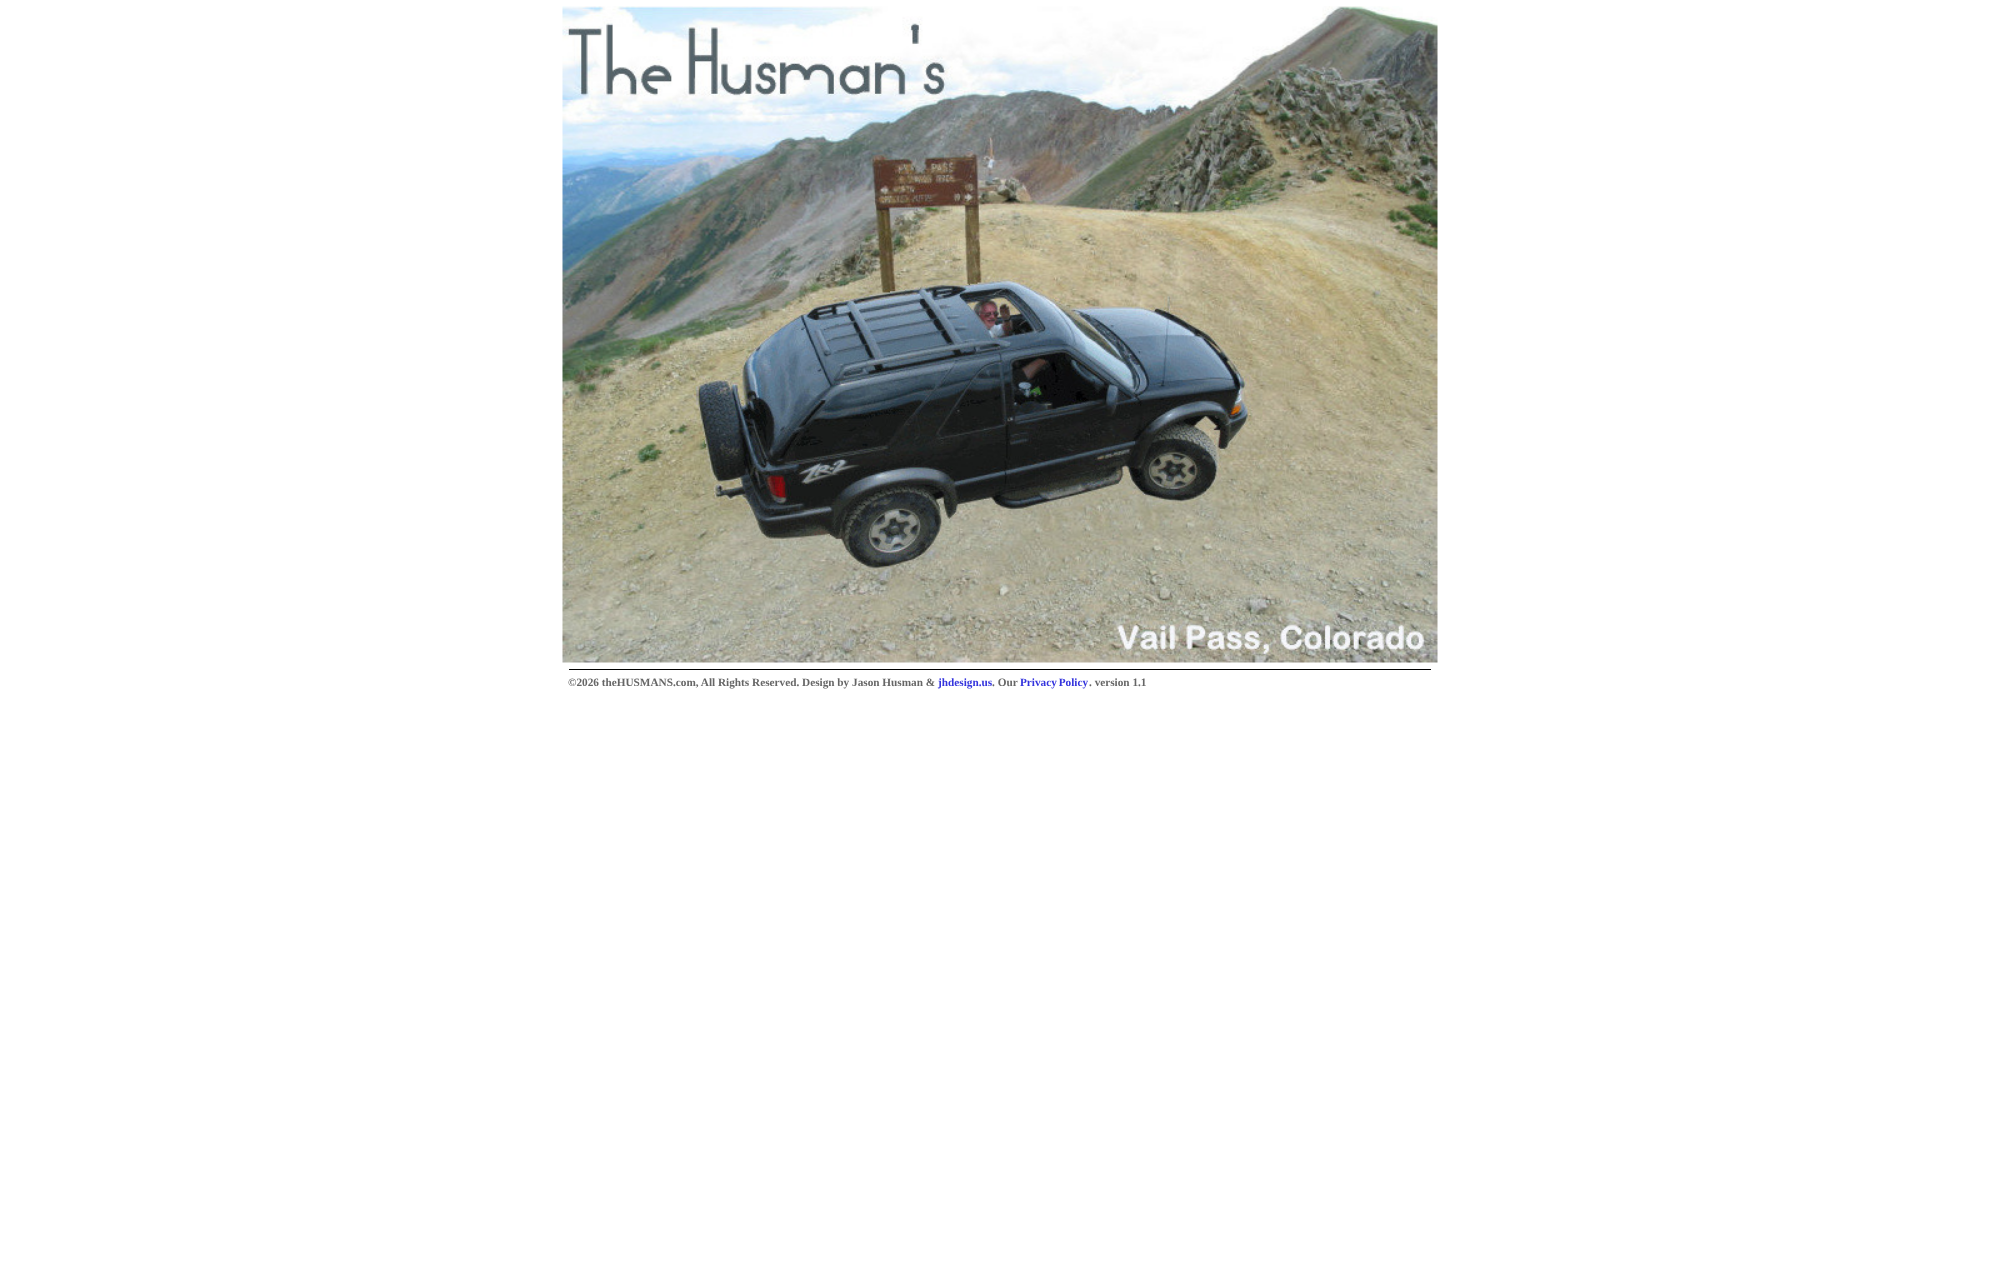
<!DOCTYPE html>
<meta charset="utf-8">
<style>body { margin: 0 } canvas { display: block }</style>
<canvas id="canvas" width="1998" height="1262"></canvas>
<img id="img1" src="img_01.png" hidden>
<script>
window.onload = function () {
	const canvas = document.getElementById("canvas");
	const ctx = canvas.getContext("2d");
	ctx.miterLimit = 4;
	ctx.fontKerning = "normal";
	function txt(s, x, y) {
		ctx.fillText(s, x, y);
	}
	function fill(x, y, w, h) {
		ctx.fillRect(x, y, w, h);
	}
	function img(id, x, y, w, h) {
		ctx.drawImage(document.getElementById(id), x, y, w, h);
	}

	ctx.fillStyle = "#FFFFFF";
	fill(0, 0, 1998, 1262);
	img("img1", 562, 6, 876, 657);
	ctx.fillStyle = "#000000";
	fill(569, 669, 862, 1);
	ctx.font = "bold 11.25px Liberation Serif";
	ctx.fillStyle = "#666666";
	txt("©2026 theHUSMANS.com, All Rights Reserved. Design by Jason Husman &", 568, 686);
	ctx.fillStyle = "#3333DD";
	txt("jhdesign.us", 938, 686);
	ctx.fillStyle = "#666666";
	txt(". Our", 992, 686);
	ctx.wordSpacing = "-1px";
	ctx.fillStyle = "#3333DD";
	txt("Privacy Policy", 1020, 686);
	ctx.wordSpacing = "0px";
	ctx.fillStyle = "#666666";
	txt(". version 1.1", 1089, 686);
};
</script>
